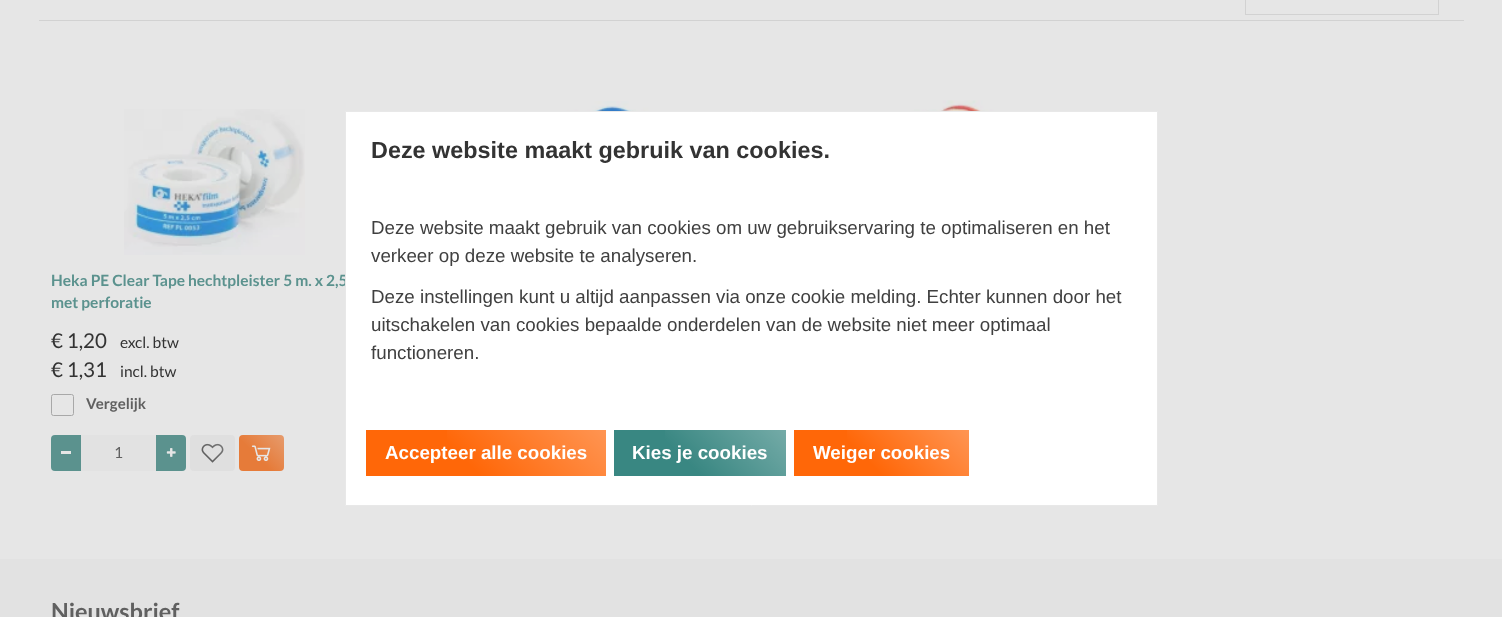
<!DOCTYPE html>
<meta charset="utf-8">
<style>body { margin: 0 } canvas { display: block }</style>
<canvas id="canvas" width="1502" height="617"></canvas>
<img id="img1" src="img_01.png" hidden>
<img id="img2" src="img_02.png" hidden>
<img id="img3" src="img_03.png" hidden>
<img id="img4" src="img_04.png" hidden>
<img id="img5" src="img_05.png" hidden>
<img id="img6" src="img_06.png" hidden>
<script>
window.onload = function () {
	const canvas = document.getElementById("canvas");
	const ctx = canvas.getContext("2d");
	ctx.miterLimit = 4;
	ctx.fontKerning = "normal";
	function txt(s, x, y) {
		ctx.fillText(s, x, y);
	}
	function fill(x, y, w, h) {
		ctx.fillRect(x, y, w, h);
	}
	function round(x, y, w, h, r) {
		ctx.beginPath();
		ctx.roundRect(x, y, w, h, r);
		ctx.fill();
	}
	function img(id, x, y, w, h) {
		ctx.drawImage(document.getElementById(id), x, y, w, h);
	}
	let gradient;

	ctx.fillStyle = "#E6E6E6";
	fill(0, 0, 1502, 617);
	ctx.fillStyle = "#D2D2D2";
	fill(39, 20, 1425, 1);
	ctx.strokeStyle = "#D2D2D2";
	ctx.strokeRect(1245.5, -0.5, 193, 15);
	img("img1", 480, 101, 185, 10);
	img("img2", 845, 100, 167, 11);
	img("img3", 124, 109, 181, 146);
	ctx.beginPath();
	ctx.roundRect(51.5, 394.5, 22, 21, 2);
	ctx.strokeStyle = "#A8A8A8";
	ctx.stroke();
	ctx.fillStyle = "#5B928E";
	ctx.beginPath();
	ctx.roundRect(51, 435, 30, 36, [4, 0, 0, 4]);
	ctx.fill();
	ctx.fillStyle = "#E6E6E6";
	fill(61, 451, 10, 3);
	ctx.fillStyle = "#E2E2E2";
	fill(81, 435, 75, 36);
	ctx.fillStyle = "#5B928E";
	ctx.beginPath();
	ctx.roundRect(156, 435, 30, 36, [0, 4, 4, 0]);
	ctx.fill();
	img("img4", 166, 448, 10, 9);
	ctx.fillStyle = "#DFDFDF";
	round(190, 435, 45, 36, 4);
	img("img5", 201, 443, 23, 20);
	gradient = ctx.createLinearGradient(233, 433, 192, 473);
	gradient.addColorStop(0, "rgba(230, 230, 230, 0.3)");
	gradient.addColorStop(0.6, "rgba(230, 230, 230, 0)");
	ctx.fillStyle = gradient;
	fill(202, 444, 22, 16);
	ctx.fillStyle = "#E67B39";
	round(239, 435, 45, 36, 4);
	img("img6", 251, 445, 20, 17);
	gradient = ctx.createLinearGradient(282, 433, 241, 473);
	gradient.addColorStop(0, "rgba(230, 230, 230, 0.3)");
	gradient.addColorStop(0.6, "rgba(230, 230, 230, 0)");
	ctx.fillStyle = gradient;
	fill(240, 435, 44, 36);
	ctx.fillStyle = "#E2E2E2";
	fill(0, 559, 1502, 58);
	ctx.font = "bold 15.5px Lato";
	ctx.fillStyle = "#5B928E";
	txt("Heka PE Clear Tape hechtpleister 5 m. x 2,5", 51, 286);
	txt("met perforatie", 51, 308);
	ctx.font = "20.5px Lato";
	ctx.fillStyle = "#333333";
	txt("€ 1,20", 51, 348);
	ctx.font = "15.5px Lato";
	txt("excl. btw", 120, 348);
	ctx.font = "20.5px Lato";
	txt("€ 1,31", 51, 377);
	ctx.font = "15.5px Lato";
	txt("incl. btw", 120, 377);
	ctx.font = "bold 15px Lato";
	ctx.fillStyle = "#606060";
	txt("Vergelijk", 86, 409);
	ctx.font = "15.5px Lato";
	txt("1", 114, 458);
	ctx.font = "bold 23.4px Lato";
	txt("Nieuwsbrief", 51, 620);
	ctx.fillStyle = "#FFFFFF";
	ctx.beginPath();
	ctx.rect(345.5, 111.5, 812, 394);
	ctx.fill();
	ctx.strokeStyle = "#E8E8E8";
	ctx.stroke();
	ctx.font = "bold 23.4px Liberation Sans";
	ctx.fillStyle = "#333333";
	txt("Deze website maakt gebruik van cookies.", 371, 158);
	ctx.font = "18.75px Liberation Sans";
	ctx.fillStyle = "#404040";
	txt("Deze website maakt gebruik van cookies om uw gebruikservaring te optimaliseren en het", 371, 234);
	txt("verkeer op deze website te analyseren.", 371, 262);
	txt("Deze instellingen kunt u altijd aanpassen via onze cookie melding. Echter kunnen door het", 371, 303);
	txt("uitschakelen van cookies bepaalde onderdelen van de website niet meer optimaal", 371, 331);
	txt("functioneren.", 371, 359);
	ctx.fillStyle = "#FF6708";
	fill(366, 430, 240, 46);
	gradient = ctx.createLinearGradient(558, 382, 415, 525);
	gradient.addColorStop(0, "rgba(255, 255, 255, 0.3)");
	gradient.addColorStop(0.6, "rgba(255, 255, 255, 0)");
	ctx.fillStyle = gradient;
	fill(447, 430, 159, 46);
	ctx.font = "bold 18.75px Liberation Sans";
	ctx.fillStyle = "#FFFFFF";
	txt("Accepteer alle cookies", 385, 459);
	ctx.fillStyle = "#398782";
	fill(614, 430, 172, 46);
	gradient = ctx.createLinearGradient(755, 398, 645, 508);
	gradient.addColorStop(0, "rgba(255, 255, 255, 0.3)");
	gradient.addColorStop(0.6, "rgba(255, 255, 255, 0)");
	ctx.fillStyle = gradient;
	fill(665, 430, 121, 46);
	ctx.fillStyle = "#FFFFFF";
	txt("Kies je cookies", 632, 459);
	ctx.fillStyle = "#FF6708";
	fill(794, 430, 175, 46);
	gradient = ctx.createLinearGradient(937, 398, 826, 508);
	gradient.addColorStop(0, "rgba(255, 255, 255, 0.3)");
	gradient.addColorStop(0.6, "rgba(255, 255, 255, 0)");
	ctx.fillStyle = gradient;
	fill(847, 430, 122, 46);
	ctx.fillStyle = "#FFFFFF";
	txt("Weiger cookies", 813, 459);
};
</script>
